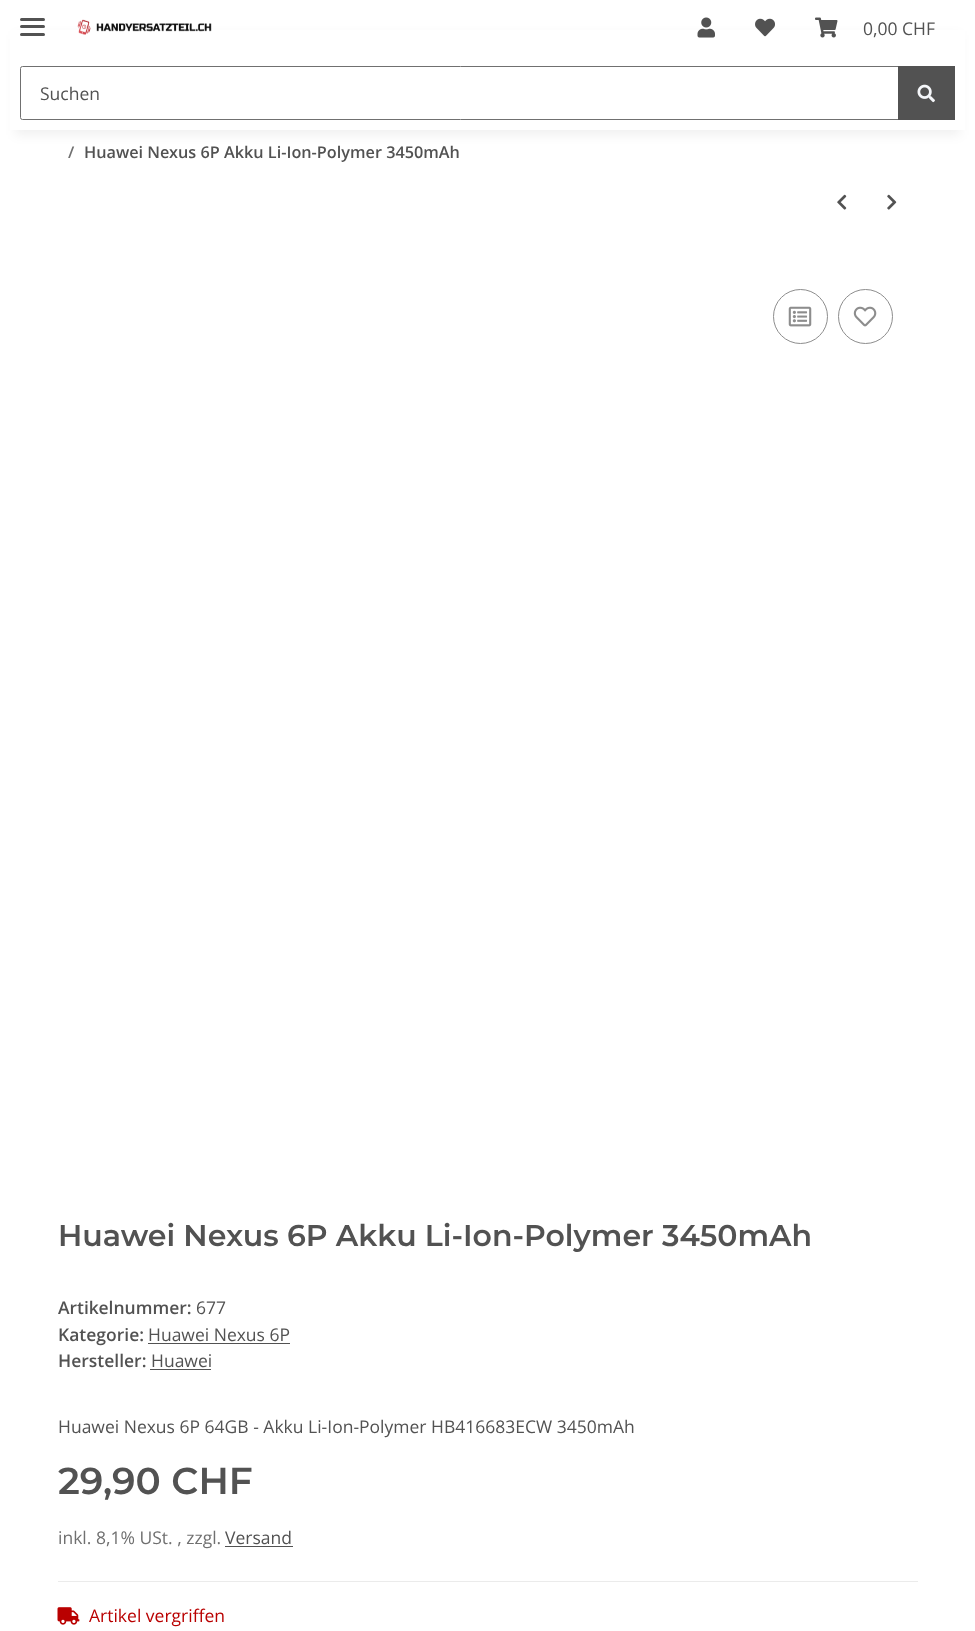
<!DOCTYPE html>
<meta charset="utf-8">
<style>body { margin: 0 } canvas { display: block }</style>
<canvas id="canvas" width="975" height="1631"></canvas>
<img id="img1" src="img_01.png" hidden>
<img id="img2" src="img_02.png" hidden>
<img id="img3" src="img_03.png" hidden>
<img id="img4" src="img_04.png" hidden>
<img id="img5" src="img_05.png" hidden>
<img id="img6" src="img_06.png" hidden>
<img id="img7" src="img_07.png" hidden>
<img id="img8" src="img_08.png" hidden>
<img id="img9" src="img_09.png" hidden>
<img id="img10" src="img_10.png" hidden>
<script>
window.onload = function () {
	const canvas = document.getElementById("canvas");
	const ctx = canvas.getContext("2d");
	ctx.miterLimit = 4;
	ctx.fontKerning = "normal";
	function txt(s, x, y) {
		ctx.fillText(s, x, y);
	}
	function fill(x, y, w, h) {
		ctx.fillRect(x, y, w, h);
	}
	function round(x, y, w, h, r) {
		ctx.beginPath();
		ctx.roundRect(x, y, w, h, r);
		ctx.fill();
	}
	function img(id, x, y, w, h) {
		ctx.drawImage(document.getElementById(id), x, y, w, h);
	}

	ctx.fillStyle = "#FFFFFF";
	fill(0, 0, 975, 1631);
	ctx.fillStyle = "rgba(0, 0, 0, 0.06)";
	ctx.filter = "blur(5.5px)";
	ctx.beginPath();
	ctx.rect(15, 35, 945, 100);
	ctx.fill();
	ctx.filter = "none";
	ctx.fillStyle = "#FFFFFF";
	fill(10, 30, 955, 100);
	ctx.fillStyle = "#525252";
	round(20, 25, 25, 3, 1.5);
	round(20, 18, 25, 3, 1.5);
	round(20, 33, 25, 3, 1.5);
	img("img1", 77, 19, 135, 16);
	img("img2", 697, 17, 18, 21);
	img("img3", 755, 18, 20, 19);
	img("img4", 815, 17, 23, 21);
	ctx.beginPath();
	ctx.roundRect(20.5, 66.5, 878, 53, [2, 0, 0, 2]);
	ctx.strokeStyle = "#707070";
	ctx.stroke();
	fill(898, 66, 57, 54);
	img("img5", 917, 84, 18, 19);
	img("img6", 837, 194, 10, 16);
	img("img7", 887, 194, 10, 16);
	ctx.beginPath();
	ctx.arc(800.5, 316.5, 27, 0, Math.PI * 2);
	ctx.strokeStyle = "#8D8D8D";
	ctx.stroke();
	img("img8", 788, 306, 24, 21);
	ctx.beginPath();
	ctx.arc(865.5, 316.5, 27, 0, Math.PI * 2);
	ctx.stroke();
	img("img9", 853, 306, 24, 21);
	fill(148, 1343, 142, 1);
	fill(150, 1369, 61, 1);
	fill(225, 1546, 68, 1);
	ctx.fillStyle = "#EBEBEB";
	fill(58, 1581, 860, 1);
	img("img10", 57, 1607, 23, 18);
	ctx.font = "17.5px Open Sans";
	ctx.fillStyle = "#525252";
	txt("0,00 CHF", 863, 35);
	txt("Suchen", 40, 100);
	ctx.font = "600 16.25px Open Sans";
	ctx.fillStyle = "#707070";
	txt("/", 68, 158);
	ctx.fillStyle = "#525252";
	txt("Huawei Nexus 6P Akku Li-Ion-Polymer 3450mAh", 84, 158);
	ctx.font = "600 30px Montserrat";
	txt("Huawei Nexus 6P Akku Li-Ion-Polymer 3450mAh", 58, 1246);
	ctx.font = "600 17.5px Open Sans";
	txt("Artikelnummer:", 58, 1314);
	ctx.font = "17.5px Open Sans";
	txt("677", 196, 1314);
	ctx.font = "600 17.5px Open Sans";
	txt("Kategorie:", 58, 1341);
	ctx.font = "17.5px Open Sans";
	txt("Huawei Nexus 6P", 148, 1341);
	ctx.font = "600 17.5px Open Sans";
	txt("Hersteller:", 58, 1367);
	ctx.font = "17.5px Open Sans";
	txt("Huawei", 151, 1367);
	txt("Huawei Nexus 6P 64GB - Akku Li-Ion-Polymer HB416683ECW 3450mAh", 58, 1433);
	ctx.font = "600 37.5px Montserrat";
	txt("29,90 CHF", 58, 1494);
	ctx.font = "17.5px Open Sans";
	ctx.fillStyle = "#707070";
	txt("inkl. 8,1% USt. , zzgl.", 58, 1544);
	ctx.fillStyle = "#525252";
	txt("Versand", 225, 1544);
	ctx.fillStyle = "#B90000";
	txt("Artikel vergriffen", 89, 1622);
};
</script>
